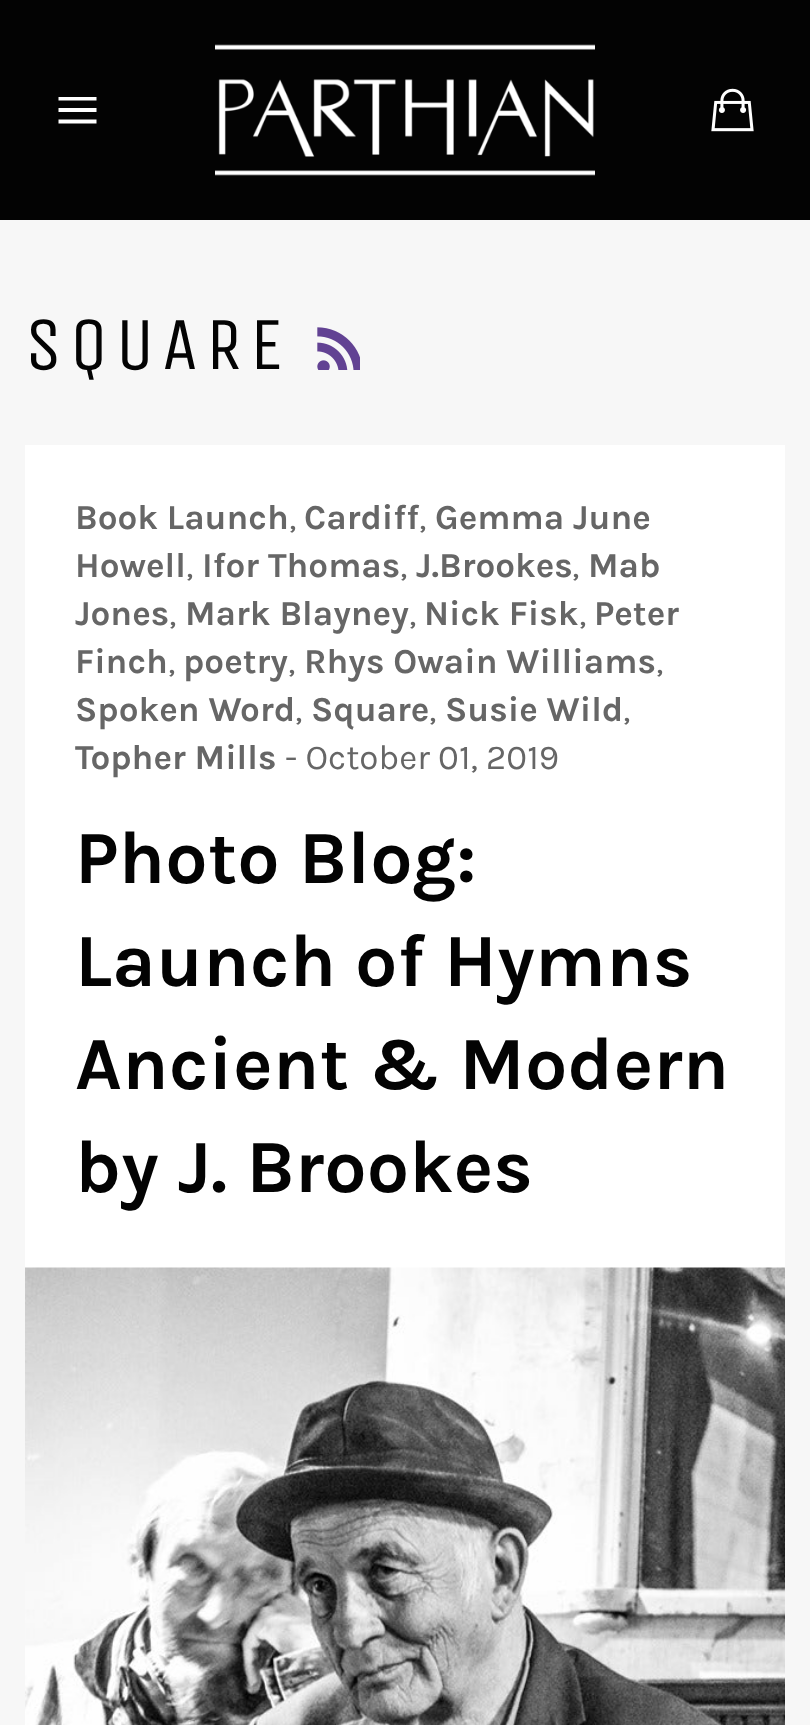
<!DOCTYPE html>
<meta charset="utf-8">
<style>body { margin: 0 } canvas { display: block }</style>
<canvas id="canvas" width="810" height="1725"></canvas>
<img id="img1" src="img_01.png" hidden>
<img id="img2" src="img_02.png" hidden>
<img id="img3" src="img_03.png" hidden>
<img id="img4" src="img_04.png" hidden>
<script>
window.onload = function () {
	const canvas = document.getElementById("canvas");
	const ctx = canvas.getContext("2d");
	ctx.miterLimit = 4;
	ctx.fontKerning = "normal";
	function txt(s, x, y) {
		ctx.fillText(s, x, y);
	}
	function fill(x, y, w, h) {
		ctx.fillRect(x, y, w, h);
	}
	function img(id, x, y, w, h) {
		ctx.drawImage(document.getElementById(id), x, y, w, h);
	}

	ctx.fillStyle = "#F7F7F7";
	fill(0, 0, 810, 1725);
	ctx.fillStyle = "#030303";
	fill(0, 0, 810, 220);
	ctx.fillStyle = "#FFFFFF";
	ctx.beginPath();
	ctx.moveTo(58.5, 108);
	ctx.lineTo(96.5, 108);
	ctx.lineTo(96.5, 112);
	ctx.lineTo(58.5, 112);
	ctx.closePath();
	ctx.moveTo(58.5, 97);
	ctx.lineTo(96.5, 97);
	ctx.lineTo(96.5, 100.5);
	ctx.lineTo(58.5, 100.5);
	ctx.closePath();
	ctx.moveTo(58.5, 119.5);
	ctx.lineTo(96.5, 119.5);
	ctx.lineTo(96.5, 123.5);
	ctx.lineTo(58.5, 123.5);
	ctx.closePath();
	ctx.fill();
	img("img1", 215, 44, 380, 132);
	img("img2", 711, 88, 43, 44);
	img("img3", 317, 327, 43, 43);
	fill(25, 445, 760, 823);
	img("img4", 25, 1267, 760, 458);
	ctx.letterSpacing = "7.5px";
	ctx.font = "75px Unica One";
	ctx.fillStyle = "#030303";
	txt("SQUARE", 25, 369);
	ctx.letterSpacing = "0px";
	ctx.font = "bold 35px Karla";
	ctx.fillStyle = "#666666";
	txt("Book Launch", 75, 529);
	ctx.font = "35px Karla";
	txt(",", 289, 529);
	ctx.font = "bold 35px Karla";
	txt("Cardiff", 304, 529);
	ctx.font = "35px Karla";
	txt(",", 419, 529);
	ctx.font = "bold 35px Karla";
	txt("Gemma June", 435, 529);
	txt("Howell", 75, 577);
	ctx.font = "35px Karla";
	txt(",", 186, 577);
	ctx.font = "bold 35px Karla";
	txt("Ifor Thomas", 202, 577);
	ctx.font = "35px Karla";
	txt(",", 400, 577);
	ctx.font = "bold 35px Karla";
	txt("J.Brookes", 416, 577);
	ctx.font = "35px Karla";
	txt(",", 572, 577);
	ctx.font = "bold 35px Karla";
	txt("Mab", 588, 577);
	txt("Jones", 75, 625);
	ctx.font = "35px Karla";
	txt(",", 169, 625);
	ctx.font = "bold 35px Karla";
	txt("Mark Blayney", 185, 625);
	ctx.font = "35px Karla";
	txt(",", 409, 625);
	ctx.font = "bold 35px Karla";
	txt("Nick Fisk", 424, 625);
	ctx.font = "35px Karla";
	txt(",", 579, 625);
	ctx.font = "bold 35px Karla";
	txt("Peter", 594, 625);
	txt("Finch", 75, 673);
	ctx.font = "35px Karla";
	txt(",", 168, 673);
	ctx.font = "bold 35px Karla";
	txt("poetry", 183, 673);
	ctx.font = "35px Karla";
	txt(",", 288, 673);
	ctx.font = "bold 35px Karla";
	txt("Rhys Owain Williams", 304, 673);
	ctx.font = "35px Karla";
	txt(",", 656, 673);
	ctx.font = "bold 35px Karla";
	txt("Spoken Word", 75, 721);
	ctx.font = "35px Karla";
	txt(",", 295, 721);
	ctx.font = "bold 35px Karla";
	txt("Square", 311, 721);
	ctx.font = "35px Karla";
	txt(",", 429, 721);
	ctx.font = "bold 35px Karla";
	txt("Susie Wild", 445, 721);
	ctx.font = "35px Karla";
	txt(",", 623, 721);
	ctx.font = "bold 35px Karla";
	txt("Topher Mills", 75, 769);
	ctx.font = "35px Karla";
	txt("- October 01, 2019", 285, 769);
	ctx.font = "bold 75px Karla";
	ctx.fillStyle = "#030303";
	txt("Photo Blog:", 75, 883);
	txt("Launch of Hymns", 75, 986);
	txt("Ancient & Modern", 75, 1089);
	txt("by J. Brookes", 75, 1192);
};
</script>
